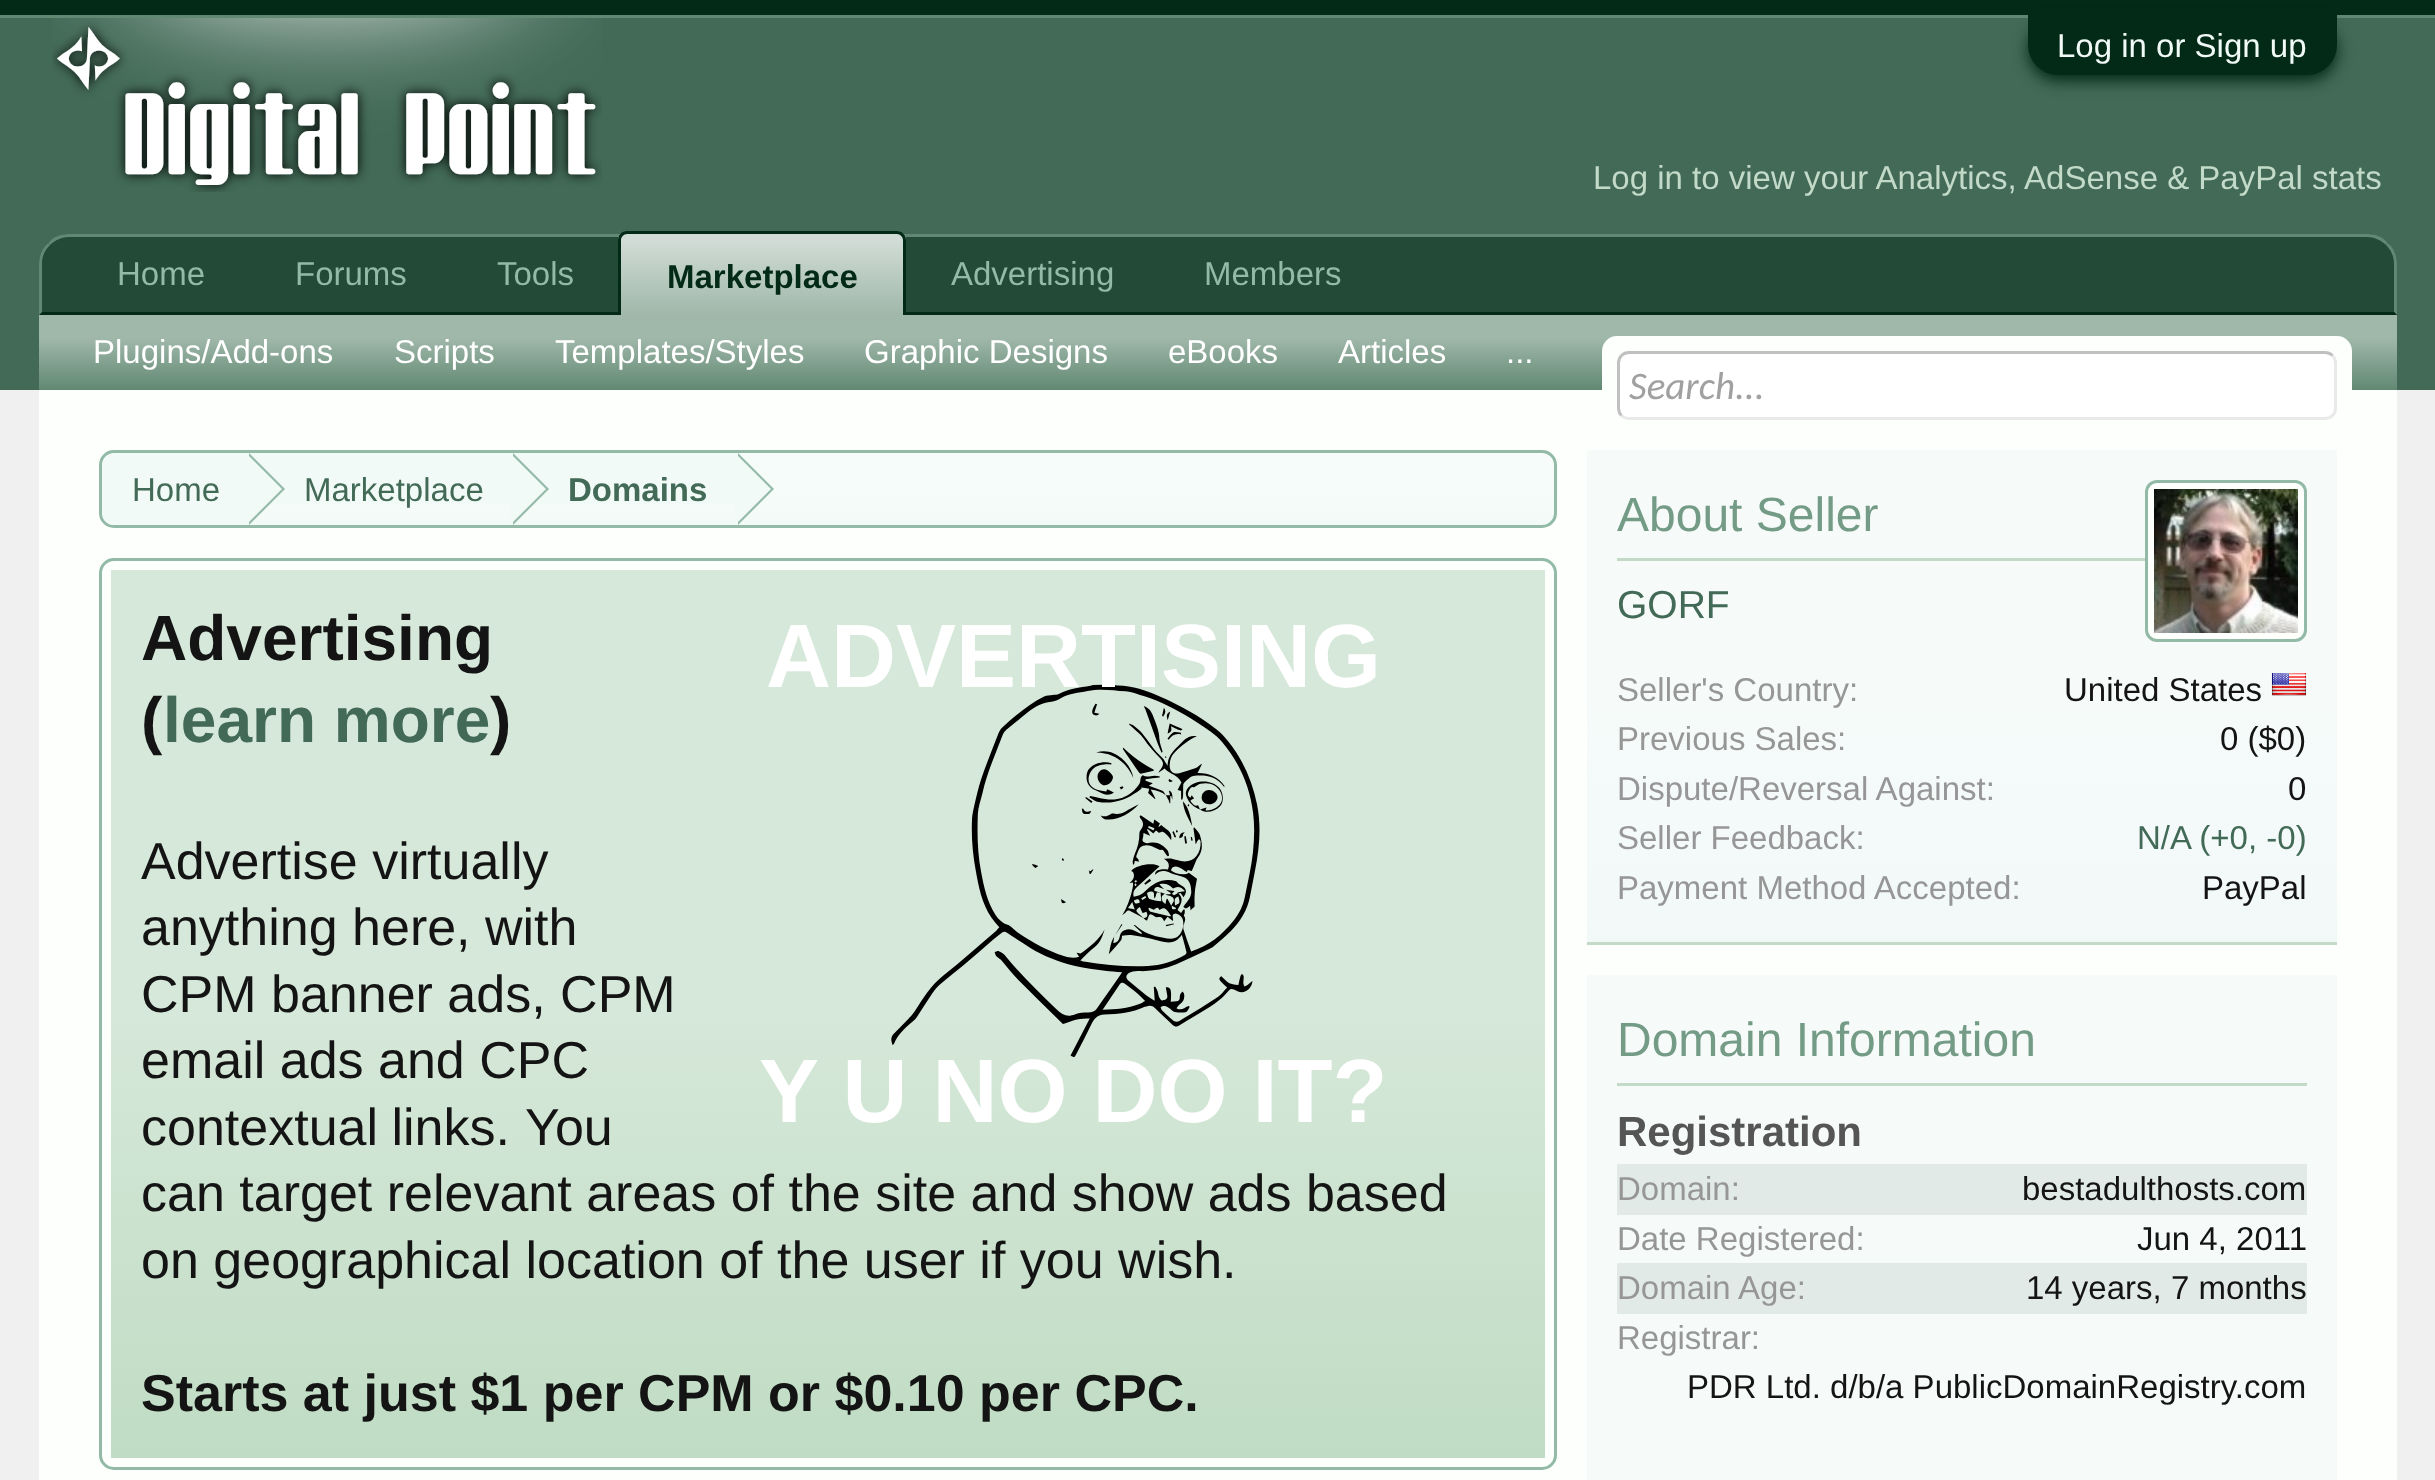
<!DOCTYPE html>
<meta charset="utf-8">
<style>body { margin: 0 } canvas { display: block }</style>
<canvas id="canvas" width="2435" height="1480"></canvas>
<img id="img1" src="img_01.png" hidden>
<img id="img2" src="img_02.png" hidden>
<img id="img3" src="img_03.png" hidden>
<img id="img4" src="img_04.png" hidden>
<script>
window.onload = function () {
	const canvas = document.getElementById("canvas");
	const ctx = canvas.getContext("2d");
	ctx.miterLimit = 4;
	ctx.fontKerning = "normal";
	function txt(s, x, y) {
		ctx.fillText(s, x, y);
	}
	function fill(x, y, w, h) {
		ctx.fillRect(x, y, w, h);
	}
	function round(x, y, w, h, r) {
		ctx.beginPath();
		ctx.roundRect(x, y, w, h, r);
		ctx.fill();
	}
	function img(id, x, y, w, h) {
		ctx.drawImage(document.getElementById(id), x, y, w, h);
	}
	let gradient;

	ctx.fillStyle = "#F0F0F0";
	fill(0, 0, 2435, 1480);
	ctx.fillStyle = "#022A17";
	fill(0, 0, 2435, 15);
	ctx.fillStyle = "#618872";
	fill(0, 15, 2435, 3);
	ctx.fillStyle = "#426A57";
	fill(0, 18, 2435, 372);
	ctx.fillStyle = "#022A17";
	ctx.filter = "blur(7.5px)";
	ctx.beginPath();
	ctx.roundRect(2028, 21, 309, 60, 30);
	ctx.fill();
	ctx.filter = "none";
	ctx.beginPath();
	ctx.roundRect(2028, 15, 309, 60, [0, 0, 30, 30]);
	ctx.fill();
	img("img1", 52, 18, 550, 174);
	ctx.fillStyle = "#224A37";
	ctx.beginPath();
	ctx.roundRect(39, 234, 2358, 81, [30, 30, 0, 0]);
	ctx.fill();
	ctx.fillStyle = "#618872";
	ctx.beginPath();
	ctx.moveTo(69, 234);
	ctx.bezierCurveTo(60, 234, 53, 237, 48, 243);
	ctx.lineTo(50, 245);
	ctx.bezierCurveTo(55, 240, 62, 237, 69, 237);
	ctx.lineTo(2367, 237);
	ctx.bezierCurveTo(2374, 237, 2381, 240, 2386, 245);
	ctx.lineTo(2388, 243);
	ctx.bezierCurveTo(2383, 237, 2376, 234, 2367, 234);
	ctx.closePath();
	ctx.fill();
	ctx.beginPath();
	ctx.moveTo(2397, 315);
	ctx.lineTo(2397, 264);
	ctx.bezierCurveTo(2397, 256, 2394, 248, 2388, 243);
	ctx.lineTo(2386, 245);
	ctx.bezierCurveTo(2391, 250, 2394, 256, 2394, 264);
	ctx.lineTo(2394, 312);
	ctx.closePath();
	ctx.fill();
	ctx.fillStyle = "#022A17";
	ctx.beginPath();
	ctx.moveTo(2397, 315);
	ctx.lineTo(2394, 312);
	ctx.lineTo(42, 312);
	ctx.lineTo(39, 315);
	ctx.closePath();
	ctx.fill();
	ctx.fillStyle = "#618872";
	ctx.beginPath();
	ctx.moveTo(39, 315);
	ctx.lineTo(42, 312);
	ctx.lineTo(42, 264);
	ctx.bezierCurveTo(42, 256, 45, 250, 50, 245);
	ctx.lineTo(48, 243);
	ctx.bezierCurveTo(42, 248, 39, 256, 39, 264);
	ctx.closePath();
	ctx.fill();
	ctx.beginPath();
	ctx.roundRect(618, 231, 288, 84, [9, 9, 0, 0]);
	ctx.fill();
	ctx.save();
	ctx.beginPath();
	ctx.roundRect(618, 231, 288, 84, [9, 9, 0, 0]);
	ctx.clip();
	gradient = ctx.createLinearGradient(762, 234, 762, 315);
	gradient.addColorStop(0, "rgba(255, 255, 255, 0.7)");
	gradient.addColorStop(0.1, "rgba(255, 255, 255, 0.7)");
	gradient.addColorStop(1, "rgba(255, 255, 255, 0.4)");
	ctx.fillStyle = gradient;
	fill(618, 234, 288, 81);
	ctx.restore();
	ctx.fillStyle = "#022A17";
	ctx.beginPath();
	ctx.moveTo(627, 231);
	ctx.lineTo(897, 231);
	ctx.bezierCurveTo(902, 231, 906, 235, 906, 240);
	ctx.lineTo(906, 315);
	ctx.lineTo(618, 315);
	ctx.lineTo(618, 240);
	ctx.bezierCurveTo(618, 235, 622, 231, 627, 231);
	ctx.closePath();
	ctx.moveTo(627, 234);
	ctx.lineTo(897, 234);
	ctx.bezierCurveTo(900, 234, 903, 237, 903, 240);
	ctx.lineTo(903, 315);
	ctx.lineTo(621, 315);
	ctx.lineTo(621, 240);
	ctx.bezierCurveTo(621, 237, 624, 234, 627, 234);
	ctx.closePath();
	ctx.fill("evenodd");
	gradient = ctx.createLinearGradient(1218, 315, 1218, 390);
	gradient.addColorStop(0, "#A0B8AA");
	gradient.addColorStop(0.3, "#A0B8AA");
	gradient.addColorStop(1, "#618872");
	ctx.fillStyle = gradient;
	fill(39, 315, 2358, 75);
	ctx.fillStyle = "#FCFFFC";
	fill(39, 390, 2358, 1090);
	round(1602, 336, 750, 84, 15);
	ctx.fillStyle = "#FFFFFF";
	round(1617, 351, 720, 69, 12);
	ctx.beginPath();
	ctx.moveTo(2332.5, 355.5);
	ctx.bezierCurveTo(2334.5, 357.5, 2335.5, 360, 2335.5, 363);
	ctx.lineTo(2335.5, 408);
	ctx.bezierCurveTo(2335.5, 411, 2334.5, 413.5, 2332.5, 415.5);
	ctx.bezierCurveTo(2330.5, 417.5, 2328, 418.5, 2325, 418.5);
	ctx.lineTo(1629, 418.5);
	ctx.bezierCurveTo(1626, 418.5, 1623.5, 417.5, 1621.5, 415.5);
	ctx.strokeStyle = "#E9E9E9";
	ctx.lineWidth = 3;
	ctx.stroke();
	ctx.beginPath();
	ctx.moveTo(1621.5, 415.5);
	ctx.bezierCurveTo(1619.5, 413.5, 1618.5, 411, 1618.5, 408);
	ctx.lineTo(1618.5, 363);
	ctx.bezierCurveTo(1618.5, 360, 1619.5, 357.5, 1621.5, 355.5);
	ctx.bezierCurveTo(1623.5, 353.5, 1626, 352.5, 1629, 352.5);
	ctx.lineTo(2325, 352.5);
	ctx.bezierCurveTo(2328, 352.5, 2330.5, 353.5, 2332.5, 355.5);
	ctx.strokeStyle = "#C0C0C0";
	ctx.stroke();
	ctx.fillStyle = "#F2FAF7";
	round(99, 450, 1458, 78, 15);
	ctx.save();
	ctx.beginPath();
	ctx.roundRect(99, 450, 1458, 78, 15);
	ctx.clip();
	gradient = ctx.createLinearGradient(828, 453, 828, 525);
	gradient.addColorStop(0, "rgba(255, 255, 255, 0.35)");
	gradient.addColorStop(0.5, "rgba(255, 255, 255, 0.35)");
	gradient.addColorStop(1, "rgba(255, 255, 255, 0)");
	ctx.fillStyle = gradient;
	fill(99, 453, 1458, 70);
	ctx.restore();
	ctx.beginPath();
	ctx.roundRect(100.5, 451.5, 1455, 75, 13.5);
	ctx.strokeStyle = "#92BAA7";
	ctx.stroke();
	ctx.save();
	ctx.beginPath();
	ctx.roundRect(102, 453, 1452, 72, 12);
	ctx.clip();
	ctx.beginPath();
	ctx.roundRect(102, 453, 147, 75, [15, 0, 0, 15]);
	ctx.fill();
	ctx.restore();
	fill(249, 453, 489, 52);
	ctx.fillStyle = "#92BAA7";
	ctx.beginPath();
	ctx.moveTo(249, 525);
	ctx.lineTo(249, 453);
	ctx.lineTo(285, 489);
	ctx.closePath();
	ctx.fill();
	ctx.fillStyle = "#F2FAF7";
	ctx.beginPath();
	ctx.moveTo(246, 525);
	ctx.lineTo(246, 453);
	ctx.lineTo(282, 489);
	ctx.closePath();
	ctx.fill();
	ctx.fillStyle = "#92BAA7";
	ctx.beginPath();
	ctx.moveTo(513, 525);
	ctx.lineTo(513, 453);
	ctx.lineTo(549, 489);
	ctx.closePath();
	ctx.fill();
	ctx.fillStyle = "#F2FAF7";
	ctx.beginPath();
	ctx.moveTo(510, 525);
	ctx.lineTo(510, 453);
	ctx.lineTo(546, 489);
	ctx.closePath();
	ctx.fill();
	ctx.fillStyle = "#92BAA7";
	ctx.beginPath();
	ctx.moveTo(738, 525);
	ctx.lineTo(738, 453);
	ctx.lineTo(774, 489);
	ctx.closePath();
	ctx.fill();
	ctx.fillStyle = "#F2FAF7";
	ctx.beginPath();
	ctx.moveTo(735, 525);
	ctx.lineTo(735, 453);
	ctx.lineTo(771, 489);
	ctx.closePath();
	ctx.fill();
	ctx.beginPath();
	ctx.roundRect(100.5, 559.5, 1455, 909, 13.5);
	ctx.stroke();
	gradient = ctx.createLinearGradient(828, 570, 828, 1458);
	gradient.addColorStop(0, "#D6E8D9");
	gradient.addColorStop(0.5, "#D6E8D9");
	gradient.addColorStop(1, "#C0DCC4");
	ctx.fillStyle = gradient;
	fill(111, 570, 1434, 888);
	img("img2", 891, 684, 369, 373);
	gradient = ctx.createLinearGradient(1962, 450, 1962, 942);
	gradient.addColorStop(0, "#F6FBFA");
	gradient.addColorStop(0.5, "#F6FBFA");
	gradient.addColorStop(1, "#F1F9F8");
	ctx.fillStyle = gradient;
	fill(1587, 450, 750, 492);
	ctx.fillStyle = "#C2DAC7";
	fill(1587, 942, 750, 3);
	fill(1617, 558, 528, 3);
	ctx.fillStyle = "#FCFFFC";
	round(2145, 480, 162, 162, 12);
	img("img3", 2154, 489, 144, 144);
	ctx.beginPath();
	ctx.roundRect(2146.5, 481.5, 159, 159, 10.5);
	ctx.stroke();
	img("img4", 2271, 673, 36, 23);
	gradient = ctx.createLinearGradient(1962, 975, 1962, 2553);
	gradient.addColorStop(0, "#F6FBFA");
	gradient.addColorStop(0.5, "#F6FBFA");
	gradient.addColorStop(1, "#F1F9F8");
	ctx.fillStyle = gradient;
	fill(1587, 975, 750, 505);
	ctx.fillStyle = "#C2DAC7";
	fill(1617, 1083, 690, 3);
	ctx.fillStyle = "#E2EAE7";
	fill(1617, 1164, 690, 51);
	fill(1617, 1263, 690, 51);
	ctx.font = "33px Liberation Sans";
	ctx.fillStyle = "#F2FAF7";
	txt("Log in or Sign up", 2057, 57);
	ctx.fillStyle = "#C2DAC7";
	txt("Log in to view your Analytics, AdSense & PayPal stats", 1593, 189);
	ctx.fillStyle = "#92BAA7";
	txt("Home", 117, 285);
	txt("Forums", 295, 285);
	txt("Tools", 497, 285);
	txt("Advertising", 951, 285);
	txt("Members", 1204, 285);
	ctx.font = "bold 33px Liberation Sans";
	ctx.fillStyle = "#022A17";
	txt("Marketplace", 667, 288);
	ctx.font = "33px Liberation Sans";
	ctx.fillStyle = "#FFFFFF";
	txt("Plugins/Add-ons", 93, 363);
	txt("Scripts", 394, 363);
	txt("Templates/Styles", 555, 363);
	txt("Graphic Designs", 864, 363);
	txt("eBooks", 1168, 363);
	txt("Articles", 1338, 363);
	txt("...", 1506, 363);
	ctx.font = "italic 39px Carlito";
	ctx.fillStyle = "#A0A0A0";
	txt("Search...", 1629, 399);
	ctx.font = "33px Liberation Sans";
	ctx.fillStyle = "#426A57";
	txt("Home", 132, 501);
	txt("Marketplace", 304, 501);
	ctx.font = "bold 33px Liberation Sans";
	txt("Domains", 568, 501);
	ctx.font = "bold 64px Liberation Sans";
	ctx.fillStyle = "#141414";
	txt("Advertising", 141, 660);
	txt("(", 141, 742);
	ctx.fillStyle = "#426A57";
	txt("learn more", 163, 742);
	ctx.fillStyle = "#141414";
	txt(")", 490, 742);
	ctx.font = "bold 90px Liberation Sans";
	ctx.fillStyle = "#FFFFFF";
	txt("ADVERTISING", 766, 687);
	txt("Y U NO DO IT?", 759, 1122);
	ctx.font = "52px Liberation Sans";
	ctx.fillStyle = "#141414";
	txt("Advertise virtually", 141, 879);
	txt("anything here, with", 141, 945);
	txt("CPM banner ads, CPM", 141, 1012);
	txt("email ads and CPC", 141, 1078);
	ctx.wordSpacing = "-1px";
	txt("contextual links.", 141, 1145);
	ctx.wordSpacing = "0px";
	txt("You", 525, 1145);
	txt("can target relevant areas of the site and show ads based", 141, 1211);
	txt("on geographical location of the user if you wish.", 141, 1278);
	ctx.font = "bold 52px Liberation Sans";
	txt("Starts at just $1 per CPM or $0.10 per CPC.", 141, 1411);
	ctx.font = "48px Liberation Sans";
	ctx.fillStyle = "#749B85";
	txt("About Seller", 1617, 531);
	ctx.font = "39px Liberation Sans";
	ctx.fillStyle = "#426A57";
	txt("GORF", 1617, 618);
	ctx.font = "33px Liberation Sans";
	ctx.fillStyle = "#969696";
	txt("Seller's Country:", 1617, 701);
	ctx.fillStyle = "#141414";
	txt("United States", 2064, 701);
	ctx.fillStyle = "#969696";
	txt("Previous Sales:", 1617, 750);
	ctx.fillStyle = "#141414";
	txt("0 ($0)", 2220, 750);
	ctx.fillStyle = "#969696";
	txt("Dispute/Reversal Against:", 1617, 800);
	ctx.fillStyle = "#141414";
	txt("0", 2288, 800);
	ctx.fillStyle = "#969696";
	txt("Seller Feedback:", 1617, 849);
	ctx.fillStyle = "#426A57";
	txt("N/A (+0, -0)", 2137, 849);
	ctx.fillStyle = "#969696";
	txt("Payment Method Accepted:", 1617, 899);
	ctx.fillStyle = "#141414";
	txt("PayPal", 2202, 899);
	ctx.font = "48px Liberation Sans";
	ctx.fillStyle = "#749B85";
	txt("Domain Information", 1617, 1056);
	ctx.font = "bold 42px Liberation Sans";
	ctx.fillStyle = "#555555";
	txt("Registration", 1617, 1146);
	ctx.font = "33px Liberation Sans";
	ctx.fillStyle = "#969696";
	txt("Domain:", 1617, 1200);
	ctx.fillStyle = "#141414";
	txt("bestadulthosts.com", 2022, 1200);
	ctx.fillStyle = "#969696";
	txt("Date Registered:", 1617, 1250);
	ctx.fillStyle = "#141414";
	txt("Jun 4, 2011", 2137, 1250);
	ctx.fillStyle = "#969696";
	txt("Domain Age:", 1617, 1299);
	ctx.fillStyle = "#141414";
	txt("14 years, 7 months", 2026, 1299);
	ctx.fillStyle = "#969696";
	txt("Registrar:", 1617, 1349);
	ctx.fillStyle = "#141414";
	txt("PDR Ltd. d/b/a PublicDomainRegistry.com", 1687, 1398);
};
</script>
